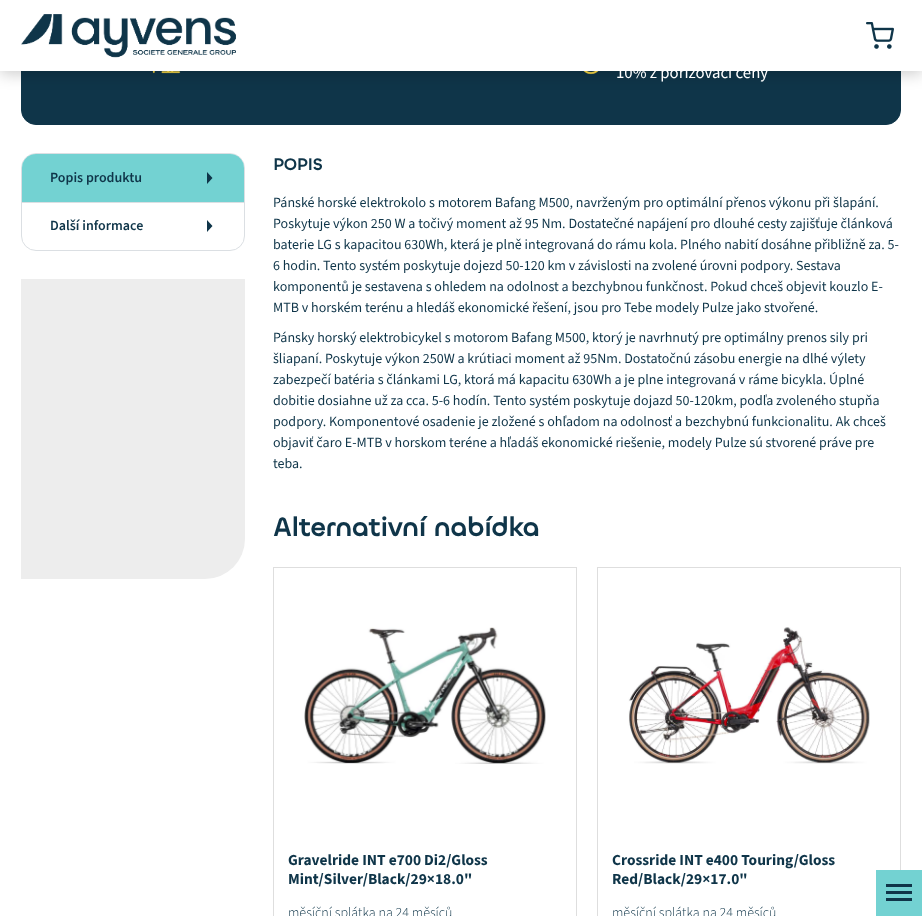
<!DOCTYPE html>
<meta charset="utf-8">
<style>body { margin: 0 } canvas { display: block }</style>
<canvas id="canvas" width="922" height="916"></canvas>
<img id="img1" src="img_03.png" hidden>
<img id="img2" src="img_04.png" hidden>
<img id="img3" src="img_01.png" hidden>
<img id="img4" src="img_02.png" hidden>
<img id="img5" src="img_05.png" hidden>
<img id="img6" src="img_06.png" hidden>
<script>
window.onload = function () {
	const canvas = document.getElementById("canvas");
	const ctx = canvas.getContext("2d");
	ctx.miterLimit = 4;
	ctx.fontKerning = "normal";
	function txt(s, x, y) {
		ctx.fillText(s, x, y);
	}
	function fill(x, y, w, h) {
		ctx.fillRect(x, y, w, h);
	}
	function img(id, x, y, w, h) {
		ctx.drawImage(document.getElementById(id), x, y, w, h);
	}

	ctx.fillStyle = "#FFFFFF";
	fill(0, 0, 922, 916);
	ctx.fillStyle = "#0F3549";
	ctx.beginPath();
	ctx.roundRect(21.5, -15.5, 879, 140, 14.5);
	ctx.fill();
	ctx.strokeStyle = "#0F3549";
	ctx.stroke();
	img("img1", 152, 71, 29, 3);
	img("img2", 583, 71, 16, 4);
	ctx.fillStyle = "rgba(0, 0, 0, 0.2)";
	ctx.filter = "blur(7.5px)";
	ctx.beginPath();
	ctx.rect(0, 3, 922, 71);
	ctx.fill();
	ctx.filter = "none";
	ctx.fillStyle = "#FFFFFF";
	fill(0, 0, 922, 71);
	img("img3", 21, 14, 215, 44);
	img("img4", 866, 22, 28, 27);
	ctx.beginPath();
	ctx.roundRect(21.5, 153.5, 223, 97, 14.5);
	ctx.strokeStyle = "#DBDFE3";
	ctx.stroke();
	ctx.fillStyle = "#73D2D2";
	ctx.beginPath();
	ctx.roundRect(22, 154, 222, 49, [14, 14, 0, 0]);
	ctx.fill();
	ctx.fillStyle = "#DBDFE3";
	fill(22, 202, 222, 1);
	ctx.fillStyle = "#0F3549";
	ctx.beginPath();
	ctx.moveTo(207, 172);
	ctx.lineTo(212.5, 178);
	ctx.lineTo(207, 184);
	ctx.closePath();
	ctx.moveTo(207, 220);
	ctx.lineTo(212.5, 226);
	ctx.lineTo(207, 232);
	ctx.closePath();
	ctx.fill();
	ctx.fillStyle = "#EDEDED";
	ctx.beginPath();
	ctx.roundRect(21, 279, 224, 300, [0, 0, 40, 0]);
	ctx.fill();
	ctx.strokeStyle = "#DEDEDE";
	ctx.strokeRect(273.5, 567.5, 303, 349);
	img("img5", 304, 627, 242, 137);
	ctx.strokeRect(597.5, 567.5, 303, 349);
	img("img6", 628, 627, 242, 137);
	ctx.fillStyle = "#73D2D2";
	fill(876, 870, 46, 46);
	ctx.fillStyle = "#0F3549";
	fill(886, 884, 26, 3);
	fill(886, 891, 26, 3);
	fill(886, 898, 26, 3);
	ctx.font = "16.75px 'Source Sans 3'";
	ctx.fillStyle = "#FFFFFF";
	txt("10% z pořizovací ceny", 616, 78);
	ctx.font = "600 14px 'Source Sans 3'";
	ctx.fillStyle = "#0F3549";
	txt("Popis produktu", 50, 182);
	txt("Další informace", 50, 230);
	ctx.font = "bold 16.75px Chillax";
	txt("POPIS", 273, 170);
	ctx.font = "14px 'Source Sans 3'";
	txt("Pánské horské elektrokolo s motorem Bafang M500, navrženým pro optimální přenos výkonu při šlapání.", 273, 207);
	txt("Poskytuje výkon 250 W a točivý moment až 95 Nm. Dostatečné napájení pro dlouhé cesty zajišťuje článková", 273, 228);
	txt("baterie LG s kapacitou 630Wh, která je plně integrovaná do rámu kola. Plného nabití dosáhne přibližně za. 5-", 273, 249);
	txt("6 hodin. Tento systém poskytuje dojezd 50-120 km v závislosti na zvolené úrovni podpory. Sestava", 273, 270);
	txt("komponentů je sestavena s ohledem na odolnost a bezchybnou funkčnost. Pokud chceš objevit kouzlo E-", 273, 291);
	txt("MTB v horském terénu a hledáš ekonomické řešení, jsou pro Tebe modely Pulze jako stvořené.", 273, 312);
	txt("Pánsky horský elektrobicykel s motorom Bafang M500, ktorý je navrhnutý pre optimálny prenos sily pri", 273, 342);
	txt("šliapaní. Poskytuje výkon 250W a krútiaci moment až 95Nm. Dostatočnú zásobu energie na dlhé výlety", 273, 363);
	txt("zabezpečí batéria s článkami LG, ktorá má kapacitu 630Wh a je plne integrovaná v ráme bicykla. Úplné", 273, 384);
	txt("dobitie dosiahne už za cca. 5-6 hodín. Tento systém poskytuje dojazd 50-120km, podľa zvoleného stupňa", 273, 405);
	txt("podpory. Komponentové osadenie je zložené s ohľadom na odolnosť a bezchybnú funkcionalitu. Ak chceš", 273, 426);
	txt("objaviť čaro E-MTB v horskom teréne a hľadáš ekonomické riešenie, modely Pulze sú stvorené práve pre", 273, 447);
	txt("teba.", 273, 468);
	ctx.font = "bold 26.5px Chillax";
	txt("Alternativní nabídka", 273, 536);
	ctx.font = "bold 15.4px 'Source Sans 3'";
	txt("Gravelride INT e700 Di2/Gloss", 288, 865);
	txt("Mint/Silver/Black/29×18.0\"", 288, 884);
	ctx.font = "300 14px 'Source Sans 3'";
	txt("měsíční splátka na 24 měsíců", 288, 917);
	ctx.font = "bold 15.4px 'Source Sans 3'";
	txt("Crossride INT e400 Touring/Gloss", 612, 865);
	txt("Red/Black/29×17.0\"", 612, 884);
	ctx.font = "300 14px 'Source Sans 3'";
	txt("měsíční splátka na 24 měsíců", 612, 917);
};
</script>
